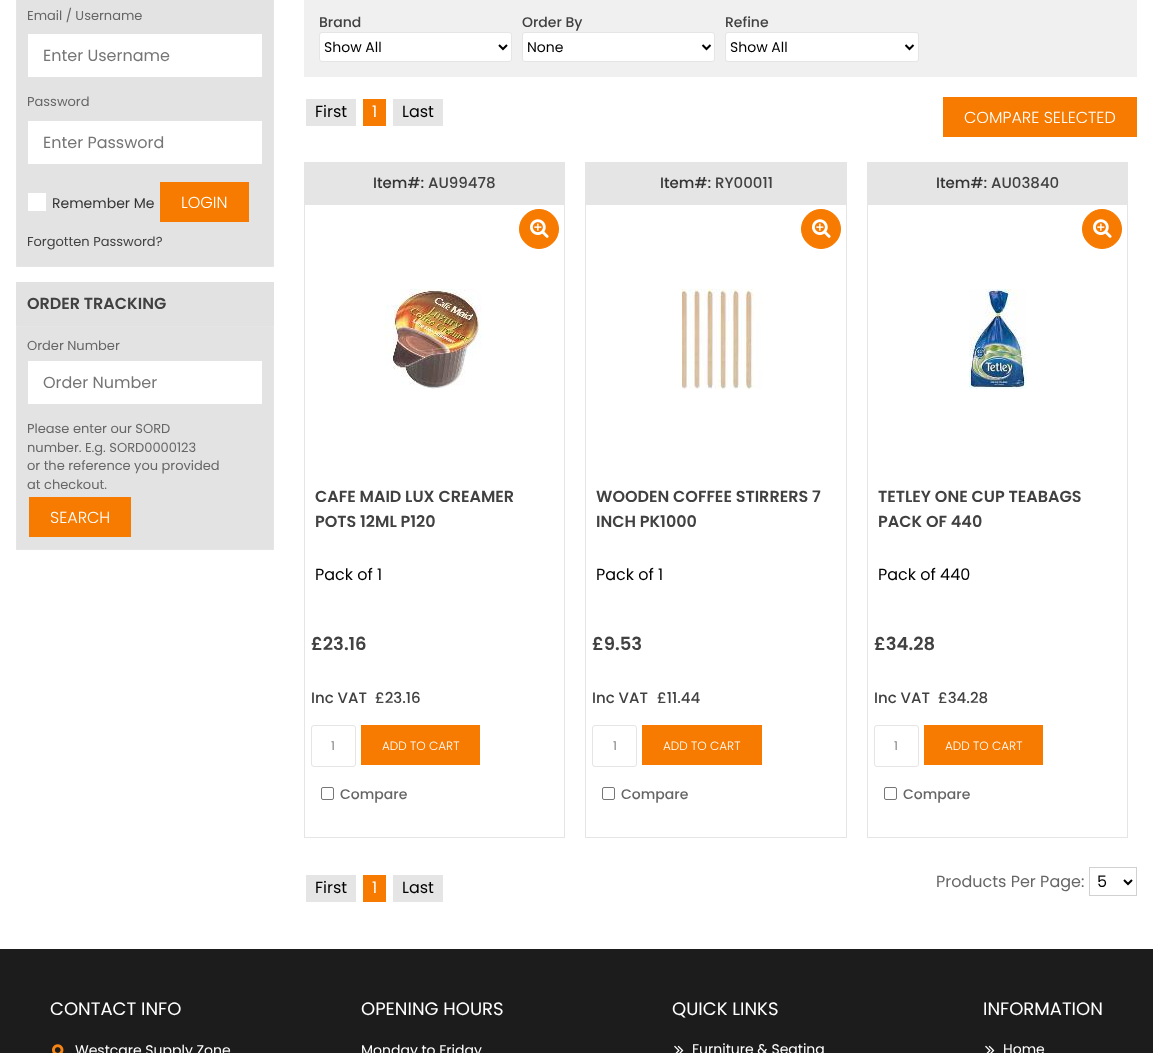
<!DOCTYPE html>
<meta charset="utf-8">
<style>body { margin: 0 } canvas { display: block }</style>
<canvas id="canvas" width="1153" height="1053"></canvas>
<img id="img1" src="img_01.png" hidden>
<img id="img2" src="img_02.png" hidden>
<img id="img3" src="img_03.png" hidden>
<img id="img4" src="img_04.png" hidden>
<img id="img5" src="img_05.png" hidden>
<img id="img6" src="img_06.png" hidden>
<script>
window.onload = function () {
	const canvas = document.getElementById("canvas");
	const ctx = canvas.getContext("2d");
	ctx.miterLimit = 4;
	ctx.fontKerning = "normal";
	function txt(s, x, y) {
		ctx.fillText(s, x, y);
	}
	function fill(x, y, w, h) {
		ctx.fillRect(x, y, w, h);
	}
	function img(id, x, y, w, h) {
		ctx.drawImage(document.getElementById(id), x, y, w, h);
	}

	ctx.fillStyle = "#FFFFFF";
	fill(0, 0, 1153, 1053);
	ctx.fillStyle = "#E3E3E3";
	ctx.beginPath();
	ctx.rect(16.5, -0.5, 257, 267);
	ctx.fill();
	ctx.strokeStyle = "#E5E5E5";
	ctx.stroke();
	ctx.fillStyle = "#FFFFFF";
	fill(28, 34, 234, 43);
	fill(28, 121, 234, 43);
	fill(28, 193, 18, 18);
	ctx.fillStyle = "#F67B00";
	fill(160, 182, 89, 40);
	ctx.fillStyle = "#E2E2E2";
	fill(16, 282, 258, 44);
	ctx.fillStyle = "#E3E3E3";
	ctx.beginPath();
	ctx.rect(16.5, 326.5, 257, 223);
	ctx.fill();
	ctx.stroke();
	ctx.fillStyle = "#FFFFFF";
	fill(28, 361, 234, 43);
	ctx.fillStyle = "#F67B00";
	fill(29, 497, 102, 40);
	ctx.fillStyle = "#F0F0F0";
	fill(304, 0, 833, 77);
	ctx.fillStyle = "#FFFFFF";
	ctx.beginPath();
	ctx.roundRect(319.5, 32.5, 192, 29, 2.5);
	ctx.fill();
	ctx.stroke();
	ctx.beginPath();
	ctx.moveTo(499, 45);
	ctx.lineTo(503, 49);
	ctx.lineTo(507, 45);
	ctx.strokeStyle = "#000000";
	ctx.lineWidth = 2;
	ctx.stroke();
	ctx.beginPath();
	ctx.roundRect(522.5, 32.5, 192, 29, 2.5);
	ctx.fill();
	ctx.strokeStyle = "#E5E5E5";
	ctx.lineWidth = 1;
	ctx.stroke();
	ctx.beginPath();
	ctx.moveTo(702.5, 45);
	ctx.lineTo(706.5, 49);
	ctx.lineTo(710.5, 45);
	ctx.strokeStyle = "#000000";
	ctx.lineWidth = 2;
	ctx.stroke();
	ctx.beginPath();
	ctx.roundRect(725.5, 32.5, 193, 29, 2.5);
	ctx.fill();
	ctx.strokeStyle = "#E5E5E5";
	ctx.lineWidth = 1;
	ctx.stroke();
	ctx.beginPath();
	ctx.moveTo(905.5, 45);
	ctx.lineTo(909.5, 49);
	ctx.lineTo(913.5, 45);
	ctx.strokeStyle = "#000000";
	ctx.lineWidth = 2;
	ctx.stroke();
	ctx.fillStyle = "#E5E5E5";
	fill(306, 99, 50, 27);
	ctx.fillStyle = "#F67B00";
	fill(363, 99, 23, 27);
	ctx.fillStyle = "#E5E5E5";
	fill(393, 99, 50, 27);
	ctx.fillStyle = "#F67B00";
	fill(943, 97, 194, 40);
	ctx.strokeStyle = "#E5E5E5";
	ctx.lineWidth = 1;
	ctx.strokeRect(304.5, 162.5, 260, 675);
	ctx.fillStyle = "#E5E5E5";
	fill(305, 163, 259, 42);
	ctx.fillStyle = "#F67B00";
	ctx.beginPath();
	ctx.arc(539, 229, 19.5, 0, Math.PI * 2);
	ctx.fill();
	ctx.strokeStyle = "#F67B00";
	ctx.stroke();
	img("img1", 530, 219, 19, 19);
	img("img2", 385, 289, 100, 100);
	ctx.beginPath();
	ctx.roundRect(311.5, 725.5, 44, 41, 2.5);
	ctx.strokeStyle = "#E5E5E5";
	ctx.stroke();
	fill(361, 725, 119, 40);
	ctx.beginPath();
	ctx.roundRect(321.5, 787.5, 12, 12, 1.5);
	ctx.strokeStyle = "#767676";
	ctx.stroke();
	ctx.strokeStyle = "#E5E5E5";
	ctx.strokeRect(585.5, 162.5, 261, 675);
	ctx.fillStyle = "#E5E5E5";
	fill(586, 163, 260, 42);
	ctx.fillStyle = "#F67B00";
	ctx.beginPath();
	ctx.arc(821, 229, 19.5, 0, Math.PI * 2);
	ctx.fill();
	ctx.strokeStyle = "#F67B00";
	ctx.stroke();
	img("img1", 812, 219, 19, 19);
	img("img3", 666, 289, 100, 100);
	ctx.beginPath();
	ctx.roundRect(592.5, 725.5, 44, 41, 2.5);
	ctx.strokeStyle = "#E5E5E5";
	ctx.stroke();
	fill(642, 725, 120, 40);
	ctx.beginPath();
	ctx.roundRect(602.5, 787.5, 12, 12, 1.5);
	ctx.strokeStyle = "#767676";
	ctx.stroke();
	ctx.strokeStyle = "#E5E5E5";
	ctx.strokeRect(867.5, 162.5, 260, 675);
	ctx.fillStyle = "#E5E5E5";
	fill(868, 163, 259, 42);
	ctx.fillStyle = "#F67B00";
	ctx.beginPath();
	ctx.arc(1102, 229, 19.5, 0, Math.PI * 2);
	ctx.fill();
	ctx.strokeStyle = "#F67B00";
	ctx.stroke();
	img("img1", 1093, 219, 19, 19);
	img("img4", 969, 289, 58, 100);
	ctx.beginPath();
	ctx.roundRect(874.5, 725.5, 44, 41, 2.5);
	ctx.strokeStyle = "#E5E5E5";
	ctx.stroke();
	fill(924, 725, 119, 40);
	ctx.beginPath();
	ctx.roundRect(884.5, 787.5, 12, 12, 1.5);
	ctx.strokeStyle = "#767676";
	ctx.stroke();
	ctx.fillStyle = "#E5E5E5";
	fill(306, 875, 50, 27);
	ctx.fillStyle = "#F67B00";
	fill(363, 875, 23, 27);
	ctx.fillStyle = "#E5E5E5";
	fill(393, 875, 50, 27);
	ctx.strokeStyle = "#D1D1D1";
	ctx.strokeRect(1089.5, 867.5, 47, 28);
	ctx.beginPath();
	ctx.moveTo(1124, 880);
	ctx.lineTo(1128, 884);
	ctx.lineTo(1132, 880);
	ctx.strokeStyle = "#000000";
	ctx.lineWidth = 2;
	ctx.stroke();
	ctx.fillStyle = "#1C1C1C";
	fill(0, 949, 1153, 104);
	img("img5", 52, 1044, 12, 9);
	img("img6", 674, 1045, 10, 8);
	img("img6", 985, 1045, 10, 8);
	ctx.font = "13px Poppins";
	ctx.fillStyle = "#666666";
	txt("Email / Username", 27, 20);
	ctx.font = "16px Poppins";
	ctx.fillStyle = "#757575";
	txt("Enter Username", 43, 61);
	ctx.font = "13px Poppins";
	ctx.fillStyle = "#666666";
	txt("Password", 27, 106);
	ctx.font = "16px Poppins";
	ctx.fillStyle = "#757575";
	txt("Enter Password", 43, 148);
	ctx.font = "14px Poppins";
	ctx.fillStyle = "#343434";
	txt("Remember Me", 52, 208);
	ctx.font = "300 16px Poppins";
	ctx.fillStyle = "#FFFFFF";
	txt("LOGIN", 181, 208);
	ctx.font = "13px Poppins";
	ctx.fillStyle = "#414142";
	txt("Forgotten Password?", 27, 246);
	ctx.font = "600 16px Poppins";
	txt("ORDER TRACKING", 27, 309);
	ctx.font = "13px Poppins";
	ctx.fillStyle = "#666666";
	txt("Order Number", 27, 350);
	ctx.font = "16px Poppins";
	ctx.fillStyle = "#757575";
	txt("Order Number", 43, 388);
	ctx.font = "13px Poppins";
	ctx.fillStyle = "#666666";
	txt("Please enter our SORD", 27, 433);
	txt("number. E.g. SORD0000123", 27, 452);
	txt("or the reference you provided", 27, 470);
	txt("at checkout.", 27, 489);
	ctx.font = "300 16px Poppins";
	ctx.fillStyle = "#FFFFFF";
	txt("SEARCH", 50, 523);
	ctx.font = "500 14px Poppins";
	ctx.fillStyle = "#414142";
	txt("Brand", 319, 27);
	ctx.font = "14px Poppins";
	ctx.fillStyle = "#000000";
	txt("Show All", 324, 52);
	ctx.font = "500 14px Poppins";
	ctx.fillStyle = "#414142";
	txt("Order By", 522, 27);
	ctx.font = "14px Poppins";
	ctx.fillStyle = "#000000";
	txt("None", 527, 52);
	ctx.font = "500 14px Poppins";
	ctx.fillStyle = "#414142";
	txt("Refine", 725, 27);
	ctx.font = "14px Poppins";
	ctx.fillStyle = "#000000";
	txt("Show All", 730, 52);
	ctx.font = "16px Poppins";
	txt("First", 315, 117);
	ctx.fillStyle = "#FFFFFF";
	txt("1", 372, 117);
	ctx.fillStyle = "#000000";
	txt("Last", 402, 117);
	ctx.font = "300 16px Poppins";
	ctx.fillStyle = "#FFFFFF";
	txt("COMPARE SELECTED", 964, 123);
	ctx.font = "500 15px Poppins";
	ctx.fillStyle = "#343434";
	txt("Item#:", 373, 188);
	ctx.fillStyle = "#414142";
	txt("AU99478", 428, 188);
	ctx.font = "600 16px Poppins";
	txt("CAFE MAID LUX CREAMER", 315, 502);
	txt("POTS 12ML P120", 315, 527);
	ctx.font = "16px Poppins";
	ctx.fillStyle = "#000000";
	txt("Pack of 1", 315, 580);
	ctx.font = "600 18px Poppins";
	ctx.fillStyle = "#414142";
	txt("£23.16", 311, 650);
	ctx.font = "500 15px Poppins";
	txt("Inc VAT", 311, 703);
	txt("£23.16", 375, 703);
	ctx.font = "12px Poppins";
	ctx.fillStyle = "#808080";
	txt("1", 331, 750);
	ctx.font = "300 12px Poppins";
	ctx.fillStyle = "#FFFFFF";
	txt("ADD TO CART", 382, 750);
	ctx.font = "500 14px Poppins";
	ctx.fillStyle = "#666666";
	txt("Compare", 340, 799);
	ctx.font = "500 15px Poppins";
	ctx.fillStyle = "#343434";
	txt("Item#:", 660, 188);
	ctx.fillStyle = "#414142";
	txt("RY00011", 715, 188);
	ctx.font = "600 16px Poppins";
	txt("WOODEN COFFEE STIRRERS 7", 596, 502);
	txt("INCH PK1000", 596, 527);
	ctx.font = "16px Poppins";
	ctx.fillStyle = "#000000";
	txt("Pack of 1", 596, 580);
	ctx.font = "600 18px Poppins";
	ctx.fillStyle = "#414142";
	txt("£9.53", 592, 650);
	ctx.font = "500 15px Poppins";
	txt("Inc VAT", 592, 703);
	txt("£11.44", 657, 703);
	ctx.font = "12px Poppins";
	ctx.fillStyle = "#808080";
	txt("1", 613, 750);
	ctx.font = "300 12px Poppins";
	ctx.fillStyle = "#FFFFFF";
	txt("ADD TO CART", 663, 750);
	ctx.font = "500 14px Poppins";
	ctx.fillStyle = "#666666";
	txt("Compare", 621, 799);
	ctx.font = "500 15px Poppins";
	ctx.fillStyle = "#343434";
	txt("Item#:", 936, 188);
	ctx.fillStyle = "#414142";
	txt("AU03840", 991, 188);
	ctx.font = "600 16px Poppins";
	txt("TETLEY ONE CUP TEABAGS", 878, 502);
	txt("PACK OF 440", 878, 527);
	ctx.font = "16px Poppins";
	ctx.fillStyle = "#000000";
	txt("Pack of 440", 878, 580);
	ctx.font = "600 18px Poppins";
	ctx.fillStyle = "#414142";
	txt("£34.28", 874, 650);
	ctx.font = "500 15px Poppins";
	txt("Inc VAT", 874, 703);
	txt("£34.28", 938, 703);
	ctx.font = "12px Poppins";
	ctx.fillStyle = "#808080";
	txt("1", 894, 750);
	ctx.font = "300 12px Poppins";
	ctx.fillStyle = "#FFFFFF";
	txt("ADD TO CART", 945, 750);
	ctx.font = "500 14px Poppins";
	ctx.fillStyle = "#666666";
	txt("Compare", 903, 799);
	ctx.font = "16px Poppins";
	ctx.fillStyle = "#000000";
	txt("First", 315, 893);
	ctx.fillStyle = "#FFFFFF";
	txt("1", 372, 893);
	ctx.fillStyle = "#000000";
	txt("Last", 402, 893);
	ctx.fillStyle = "#666666";
	txt("Products Per Page:", 936, 887);
	ctx.fillStyle = "#000000";
	txt("5", 1097, 887);
	ctx.font = "18px Poppins";
	ctx.fillStyle = "#FFFFFF";
	txt("CONTACT INFO", 50, 1015);
	ctx.font = "14px Poppins";
	txt("Westcare Supply Zone", 75, 1055);
	ctx.font = "18px Poppins";
	txt("OPENING HOURS", 361, 1015);
	ctx.font = "14px Poppins";
	txt("Monday to Friday", 361, 1055);
	ctx.font = "18px Poppins";
	txt("QUICK LINKS", 672, 1015);
	ctx.font = "14px Poppins";
	txt("Furniture & Seating", 692, 1054);
	ctx.font = "18px Poppins";
	txt("INFORMATION", 983, 1015);
	ctx.font = "14px Poppins";
	txt("Home", 1003, 1054);
};
</script>
